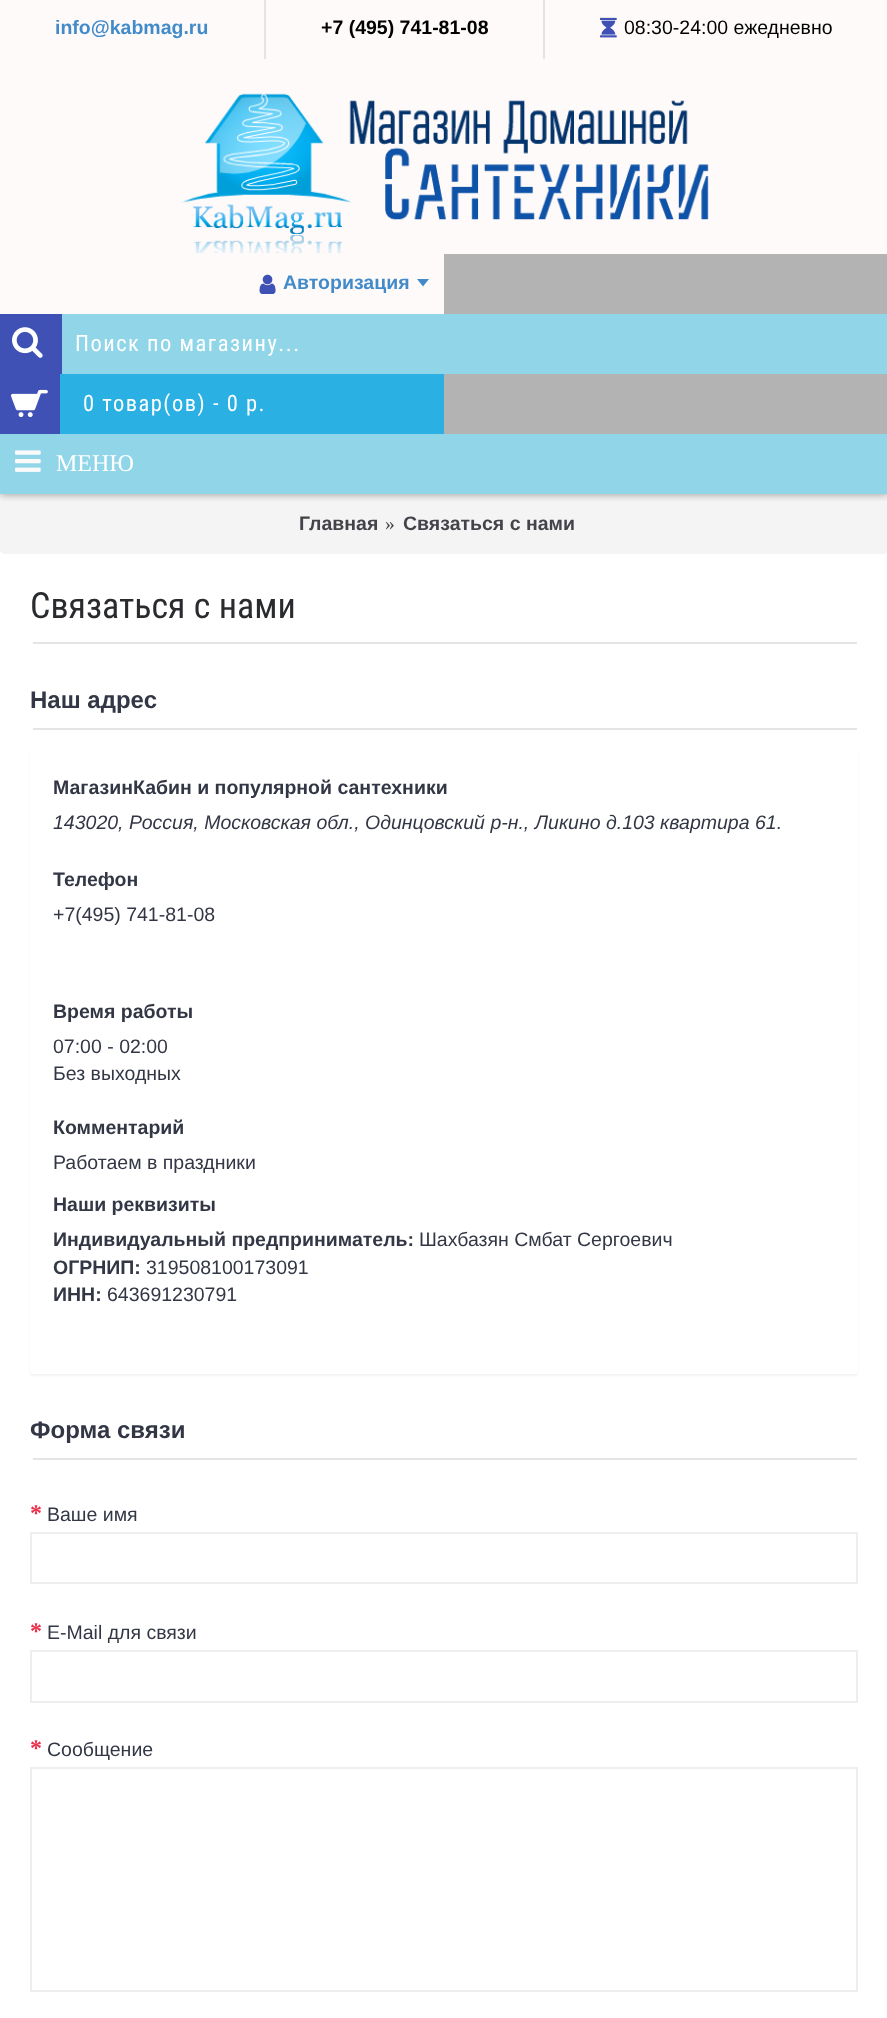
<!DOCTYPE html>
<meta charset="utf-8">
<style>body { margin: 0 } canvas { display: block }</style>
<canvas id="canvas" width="887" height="2018"></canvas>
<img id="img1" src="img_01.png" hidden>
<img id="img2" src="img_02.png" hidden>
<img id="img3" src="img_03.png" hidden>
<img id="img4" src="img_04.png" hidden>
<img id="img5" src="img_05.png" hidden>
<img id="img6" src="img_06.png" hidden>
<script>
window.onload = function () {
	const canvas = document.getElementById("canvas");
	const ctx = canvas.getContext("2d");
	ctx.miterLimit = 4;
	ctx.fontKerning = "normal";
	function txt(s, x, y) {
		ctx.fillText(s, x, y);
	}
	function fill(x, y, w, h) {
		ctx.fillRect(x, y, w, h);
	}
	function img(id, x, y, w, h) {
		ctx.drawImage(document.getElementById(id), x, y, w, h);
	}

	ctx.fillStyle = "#B3B3B3";
	fill(0, 0, 887, 2018);
	ctx.fillStyle = "#FFFFFF";
	fill(0, 549, 887, 1469);
	ctx.fillStyle = "#F4F4F4";
	ctx.beginPath();
	ctx.moveTo(0, 494);
	ctx.lineTo(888, 494);
	ctx.lineTo(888, 549);
	ctx.bezierCurveTo(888, 552, 886, 554, 883, 554);
	ctx.lineTo(5, 554);
	ctx.bezierCurveTo(2, 554, 0, 552, 0, 549);
	ctx.closePath();
	ctx.fill();
	ctx.save();
	ctx.beginPath();
	ctx.rect(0, 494, 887, 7);
	ctx.clip();
	ctx.fillStyle = "rgba(0, 0, 0, 0.4)";
	ctx.filter = "blur(4px)";
	ctx.beginPath();
	ctx.rect(0, -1, 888, 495);
	ctx.fill();
	ctx.filter = "none";
	ctx.restore();
	ctx.fillStyle = "#FFFAFA";
	fill(0, 0, 887, 254);
	ctx.fillStyle = "#E4E4E4";
	fill(264, 0, 2, 59);
	fill(543, 0, 2, 59);
	img("img1", 600, 17, 17, 21);
	ctx.fillStyle = "#FFFAFA";
	fill(0, 254, 444, 60);
	img("img2", 259, 274, 17, 20);
	ctx.fillStyle = "#428BCA";
	ctx.beginPath();
	ctx.moveTo(429, 279);
	ctx.lineTo(417, 279);
	ctx.lineTo(423, 286.5);
	ctx.closePath();
	ctx.fill();
	ctx.fillStyle = "#3F51B5";
	fill(0, 314, 62, 60);
	img("img3", 12, 327, 31, 31);
	ctx.fillStyle = "#91D5E8";
	fill(62, 314, 825, 60);
	ctx.fillStyle = "#2BB0E3";
	fill(60, 374, 384, 60);
	ctx.fillStyle = "#3F51B5";
	fill(0, 374, 60, 60);
	img("img4", 10, 389, 38, 29);
	img("img5", 181, 93, 528, 161);
	ctx.fillStyle = "#91D5E8";
	fill(0, 434, 887, 60);
	img("img6", 15, 450, 26, 22);
	ctx.fillStyle = "#E4E4E4";
	fill(33, 642, 824, 2);
	fill(33, 728, 824, 2);
	ctx.save();
	ctx.beginPath();
	ctx.moveTo(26, 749);
	ctx.lineTo(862, 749);
	ctx.lineTo(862, 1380);
	ctx.lineTo(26, 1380);
	ctx.closePath();
	ctx.moveTo(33, 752);
	ctx.lineTo(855, 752);
	ctx.bezierCurveTo(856.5, 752, 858, 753.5, 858, 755);
	ctx.lineTo(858, 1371);
	ctx.bezierCurveTo(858, 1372.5, 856.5, 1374, 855, 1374);
	ctx.lineTo(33, 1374);
	ctx.bezierCurveTo(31.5, 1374, 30, 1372.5, 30, 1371);
	ctx.lineTo(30, 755);
	ctx.bezierCurveTo(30, 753.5, 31.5, 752, 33, 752);
	ctx.closePath();
	ctx.clip("evenodd");
	ctx.fillStyle = "rgba(0, 0, 0, 0.05)";
	ctx.filter = "blur(1px)";
	ctx.beginPath();
	ctx.roundRect(30, 753, 828, 623, 3);
	ctx.fill();
	ctx.filter = "none";
	ctx.restore();
	fill(33, 1458, 824, 2);
	ctx.strokeStyle = "#EEEEEE";
	ctx.lineWidth = 2;
	ctx.strokeRect(31, 1533, 826, 50);
	ctx.strokeRect(31, 1651, 826, 51);
	ctx.strokeRect(31, 1768, 826, 223);
	ctx.font = "bold 19.5px Liberation Sans";
	ctx.fillStyle = "#428BCA";
	txt("info@kabmag.ru", 55, 34);
	ctx.fillStyle = "#000000";
	txt("+7 (495) 741-81-08", 321, 34);
	ctx.font = "19.5px Liberation Sans";
	txt("08:30-24:00 ежедневно", 624, 34);
	ctx.font = "bold 19.5px Liberation Sans";
	ctx.fillStyle = "#428BCA";
	txt("Авторизация", 283, 289);
	ctx.letterSpacing = "1.5px";
	ctx.font = "22.5px Roboto Condensed";
	ctx.fillStyle = "#FFFFFF";
	txt("Поиск по магазину...", 75, 351);
	txt("0 товар(ов) - 0 р.", 83, 411);
	ctx.letterSpacing = "0px";
	ctx.font = "24px Liberation Serif";
	txt("МЕНЮ", 56, 471);
	ctx.font = "bold 19.5px Liberation Sans";
	ctx.fillStyle = "#444349";
	txt("Главная", 299, 530);
	ctx.font = "19.5px Liberation Serif";
	txt("»", 385, 530);
	ctx.font = "bold 19.5px Liberation Sans";
	txt("Связаться с нами", 403, 530);
	ctx.font = "36px Roboto Condensed";
	ctx.fillStyle = "#2A2B2E";
	txt("Связаться с нами", 30, 618);
	ctx.font = "bold 24px Liberation Sans";
	ctx.fillStyle = "#333745";
	txt("Наш адрес", 30, 708);
	ctx.font = "bold 19.5px Liberation Sans";
	txt("МагазинКабин и популярной сантехники", 53, 794);
	ctx.font = "italic 19.5px Liberation Sans";
	txt("143020, Россия, Московская обл., Одинцовский р-н., Ликино д.103 квартира 61.", 53, 829);
	ctx.font = "bold 19.5px Liberation Sans";
	txt("Телефон", 53, 886);
	ctx.font = "19.5px Liberation Sans";
	txt("+7(495) 741-81-08", 53, 921);
	ctx.font = "bold 19.5px Liberation Sans";
	txt("Время работы", 53, 1018);
	ctx.font = "19.5px Liberation Sans";
	txt("07:00 - 02:00", 53, 1053);
	txt("Без выходных", 53, 1080);
	ctx.font = "bold 19.5px Liberation Sans";
	txt("Комментарий", 53, 1134);
	ctx.font = "19.5px Liberation Sans";
	txt("Работаем в праздники", 53, 1169);
	ctx.font = "bold 19.5px Liberation Sans";
	txt("Наши реквизиты", 53, 1211);
	txt("Индивидуальный предприниматель:", 53, 1246);
	ctx.font = "19.5px Liberation Sans";
	txt("Шахбазян Смбат Сергоевич", 419, 1246);
	ctx.font = "bold 19.5px Liberation Sans";
	txt("ОГРНИП:", 53, 1274);
	ctx.font = "19.5px Liberation Sans";
	txt("319508100173091", 146, 1274);
	ctx.font = "bold 19.5px Liberation Sans";
	txt("ИНН:", 53, 1301);
	ctx.font = "19.5px Liberation Sans";
	txt("643691230791", 107, 1301);
	ctx.font = "bold 24px Liberation Sans";
	txt("Форма связи", 30, 1438);
	ctx.font = "bold 24px Liberation Serif";
	ctx.fillStyle = "#EA2E49";
	txt("*", 30, 1521);
	ctx.font = "19.5px Liberation Sans";
	ctx.fillStyle = "#333745";
	txt("Ваше имя", 47, 1521);
	ctx.font = "bold 24px Liberation Serif";
	ctx.fillStyle = "#EA2E49";
	txt("*", 30, 1639);
	ctx.font = "19.5px Liberation Sans";
	ctx.fillStyle = "#333745";
	txt("E-Mail для связи", 47, 1639);
	ctx.font = "bold 24px Liberation Serif";
	ctx.fillStyle = "#EA2E49";
	txt("*", 30, 1756);
	ctx.font = "19.5px Liberation Sans";
	ctx.fillStyle = "#333745";
	txt("Сообщение", 47, 1756);
};
</script>
